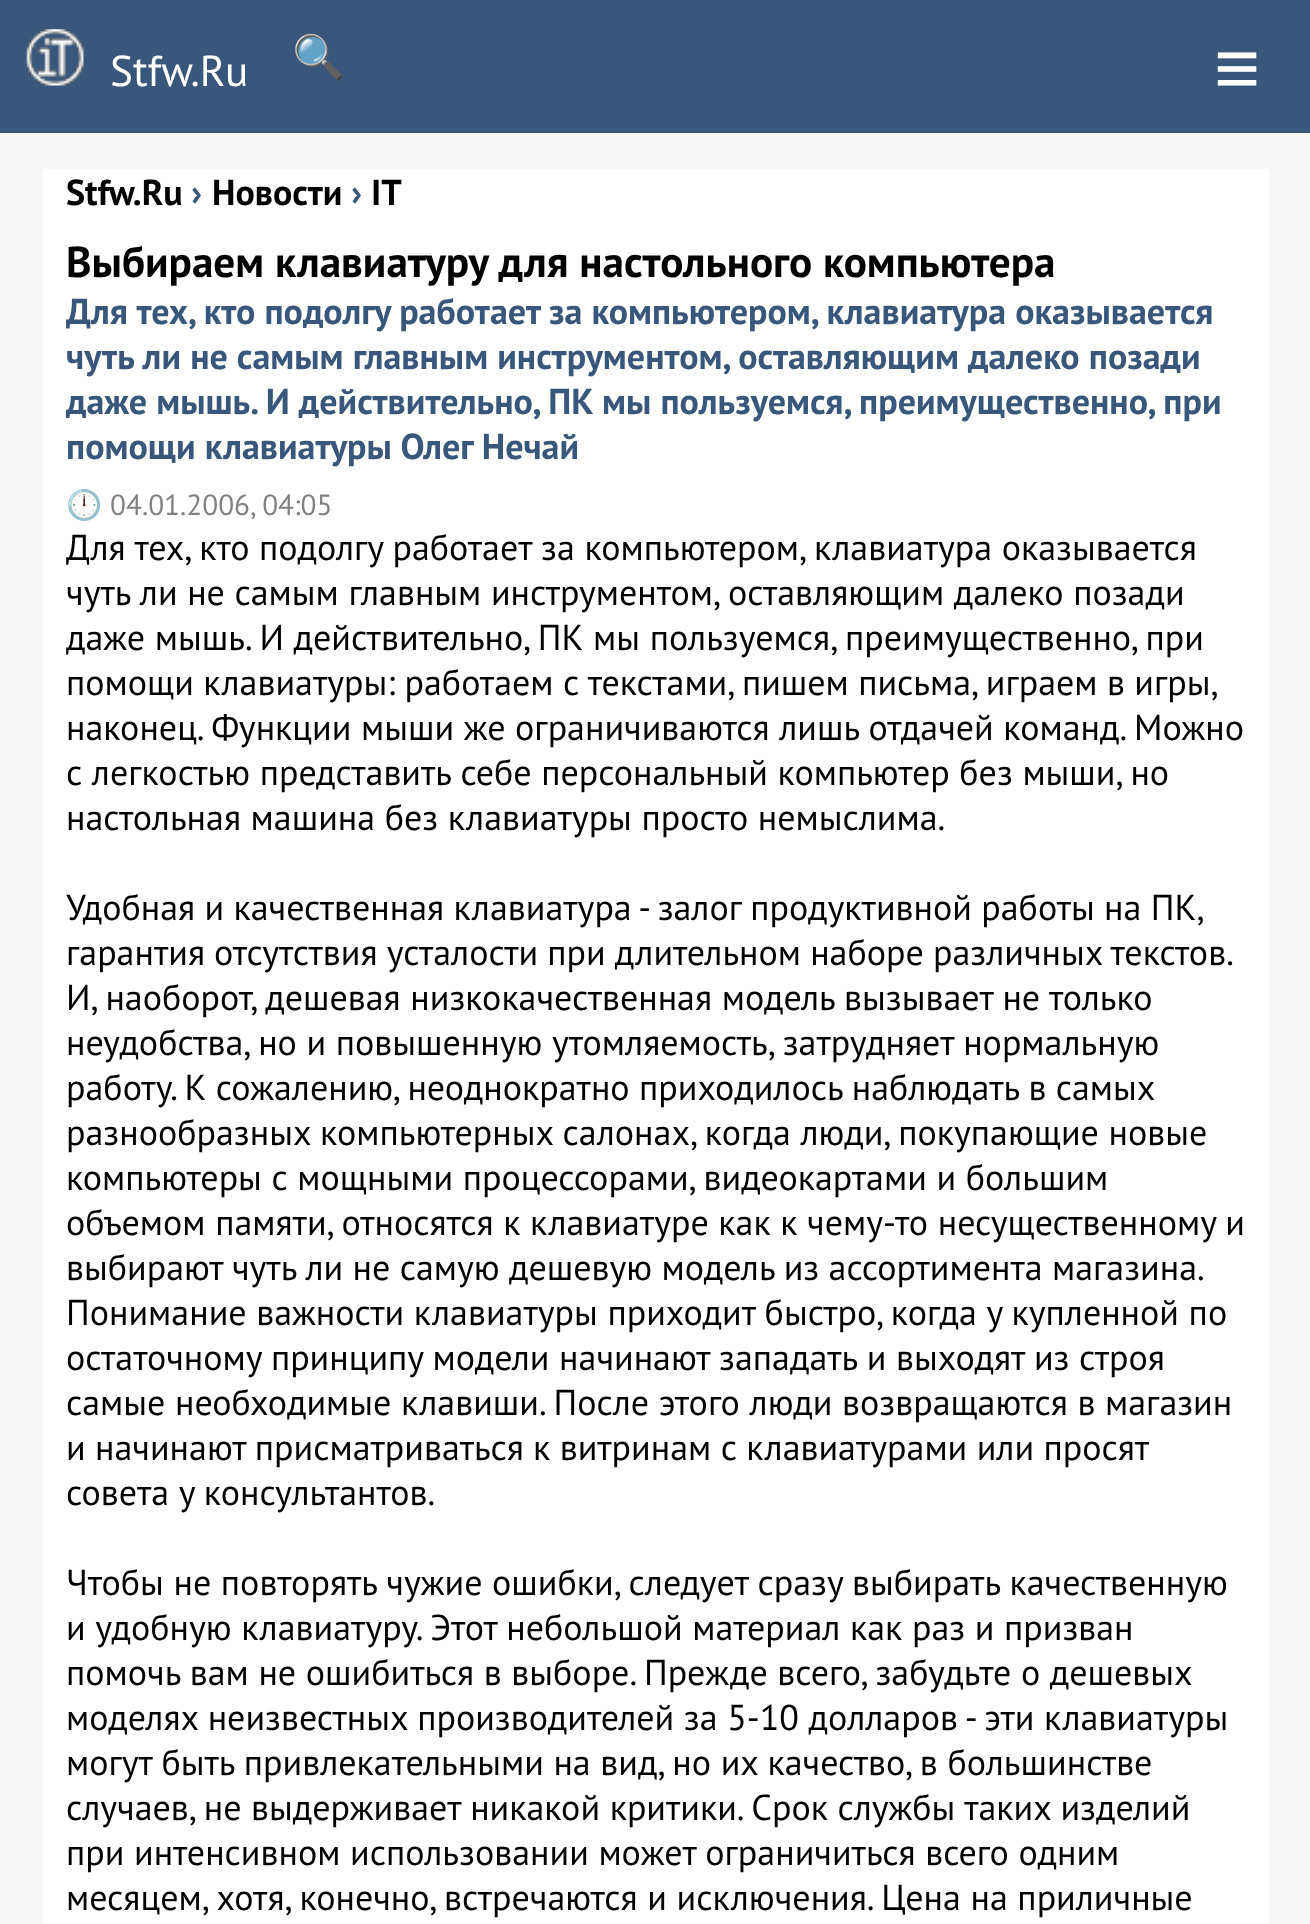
<!DOCTYPE html>
<meta charset="utf-8">
<style>body { margin: 0 } canvas { display: block }</style>
<canvas id="canvas" width="1310" height="1924"></canvas>
<img id="img1" src="img_01.png" hidden>
<script>
window.onload = function () {
	const canvas = document.getElementById("canvas");
	const ctx = canvas.getContext("2d");
	ctx.miterLimit = 4;
	ctx.fontKerning = "normal";
	function txt(s, x, y) {
		ctx.fillText(s, x, y);
	}
	function fill(x, y, w, h) {
		ctx.fillRect(x, y, w, h);
	}
	function img(id, x, y, w, h) {
		ctx.drawImage(document.getElementById(id), x, y, w, h);
	}

	ctx.fillStyle = "#F8F8F8";
	fill(0, 0, 1310, 1924);
	ctx.fillStyle = "#39577B";
	fill(0, 0, 1310, 133);
	img("img1", 26, 29, 58, 57);
	ctx.fillStyle = "#FFFFFF";
	fill(43, 169, 1226, 1755);
	ctx.font = "43.2px PT Sans";
	txt("Stfw.Ru", 110, 86);
	ctx.font = "43.2px Noto Color Emoji";
	txt("🔍", 292, 72);
	ctx.font = "79px Liberation Sans";
	txt("≡", 1214, 95);
	ctx.font = "bold 36px PT Sans";
	ctx.fillStyle = "#000000";
	txt("Stfw.Ru", 66, 205);
	ctx.fillStyle = "#39577B";
	txt("›", 191, 205);
	ctx.fillStyle = "#000000";
	txt("Новости", 212, 205);
	ctx.fillStyle = "#39577B";
	txt("›", 351, 205);
	ctx.fillStyle = "#000000";
	txt("IT", 371, 205);
	ctx.font = "bold 43.2px PT Sans";
	txt("Выбираем клавиатуру для настольного компьютера", 66, 277);
	ctx.font = "bold 36px PT Sans";
	ctx.fillStyle = "#39577B";
	txt("Для тех, кто подолгу работает за компьютером, клавиатура оказывается", 66, 324);
	txt("чуть ли не самым главным инструментом, оставляющим далеко позади", 66, 369);
	txt("даже мышь. И действительно, ПК мы пользуемся, преимущественно, при", 66, 414);
	txt("помощи клавиатуры Олег Нечай", 66, 459);
	ctx.font = "29.25px Noto Color Emoji";
	ctx.fillStyle = "#818181";
	txt("🕛", 66, 515);
	ctx.font = "29.25px PT Sans";
	txt("04.01.2006, 04:05", 110, 515);
	ctx.font = "36px PT Sans";
	ctx.fillStyle = "#000000";
	txt("Для тех, кто подолгу работает за компьютером, клавиатура оказывается", 66, 560);
	txt("чуть ли не самым главным инструментом, оставляющим далеко позади", 66, 605);
	txt("даже мышь. И действительно, ПК мы пользуемся, преимущественно, при", 66, 650);
	ctx.wordSpacing = "-0.25px";
	txt("помощи клавиатуры: работаем с текстами, пишем письма, играем в игры,", 66, 695);
	ctx.wordSpacing = "0px";
	txt("наконец. Функции мыши же ограничиваются лишь отдачей команд. Можно", 66, 740);
	txt("с легкостью представить себе персональный компьютер без мыши, но", 66, 785);
	txt("настольная машина без клавиатуры просто немыслима.", 66, 830);
	ctx.wordSpacing = "-0.25px";
	txt("Удобная и качественная клавиатура - залог продуктивной работы на ПК,", 66, 920);
	ctx.wordSpacing = "-0.5px";
	txt("гарантия отсутствия усталости при длительном наборе различных текстов.", 66, 965);
	ctx.wordSpacing = "0px";
	txt("И, наоборот, дешевая низкокачественная модель вызывает не только", 66, 1010);
	txt("неудобства, но и повышенную утомляемость, затрудняет нормальную", 66, 1055);
	ctx.wordSpacing = "-0.25px";
	txt("работу. К сожалению, неоднократно приходилось наблюдать в самых", 66, 1100);
	ctx.wordSpacing = "0px";
	txt("разнообразных компьютерных салонах, когда люди, покупающие новые", 66, 1145);
	txt("компьютеры с мощными процессорами, видеокартами и большим", 66, 1190);
	txt("объемом памяти, относятся к клавиатуре как к чему-то несущественному и", 66, 1235);
	ctx.wordSpacing = "-0.25px";
	txt("выбирают чуть ли не самую дешевую модель из ассортимента магазина.", 66, 1280);
	ctx.wordSpacing = "0px";
	txt("Понимание важности клавиатуры приходит быстро, когда у купленной по", 66, 1325);
	txt("остаточному принципу модели начинают западать и выходят из строя", 66, 1370);
	txt("самые необходимые клавиши. После этого люди возвращаются в магазин", 66, 1415);
	ctx.wordSpacing = "-0.25px";
	txt("и начинают присматриваться к витринам с клавиатурами или просят", 66, 1460);
	ctx.wordSpacing = "0px";
	txt("совета у консультантов.", 66, 1505);
	txt("Чтобы не повторять чужие ошибки, следует сразу выбирать качественную", 66, 1595);
	txt("и удобную клавиатуру. Этот небольшой материал как раз и призван", 66, 1640);
	txt("помочь вам не ошибиться в выборе. Прежде всего, забудьте о дешевых", 66, 1685);
	txt("моделях неизвестных производителей за 5-10 долларов - эти клавиатуры", 66, 1730);
	txt("могут быть привлекательными на вид, но их качество, в большинстве", 66, 1775);
	txt("случаев, не выдерживает никакой критики. Срок службы таких изделий", 66, 1820);
	txt("при интенсивном использовании может ограничиться всего одним", 66, 1865);
	txt("месяцем, хотя, конечно, встречаются и исключения. Цена на приличные", 66, 1910);
};
</script>
